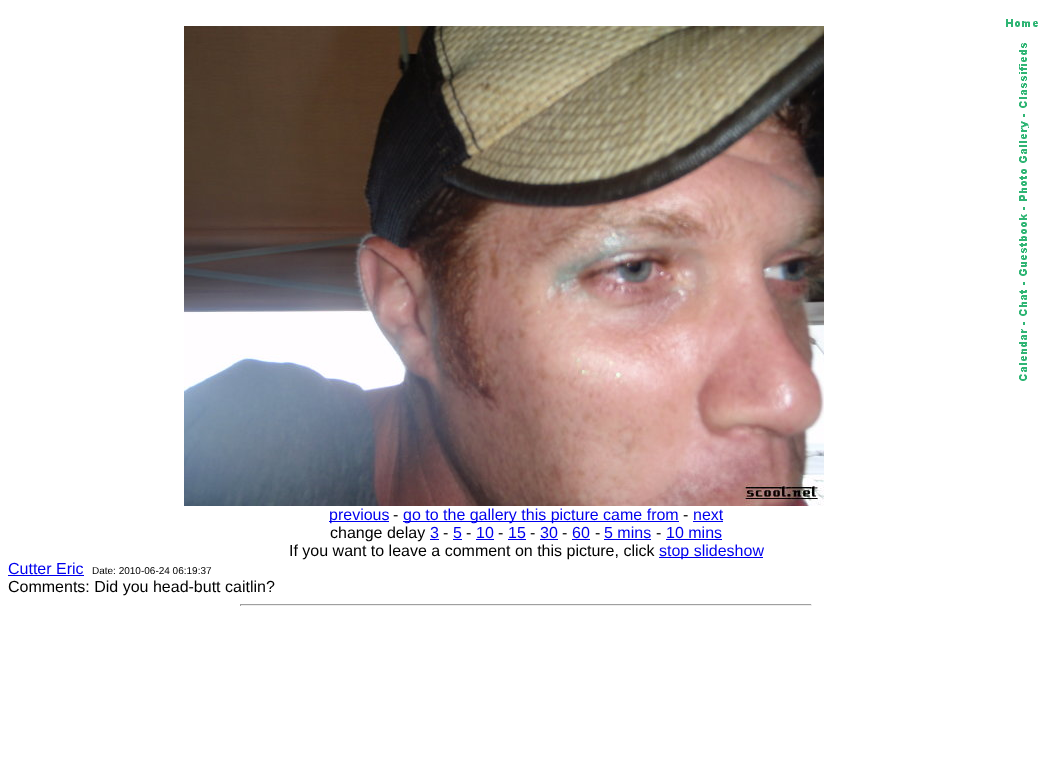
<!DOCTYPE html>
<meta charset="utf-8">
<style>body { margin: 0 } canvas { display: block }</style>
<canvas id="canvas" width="1052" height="767"></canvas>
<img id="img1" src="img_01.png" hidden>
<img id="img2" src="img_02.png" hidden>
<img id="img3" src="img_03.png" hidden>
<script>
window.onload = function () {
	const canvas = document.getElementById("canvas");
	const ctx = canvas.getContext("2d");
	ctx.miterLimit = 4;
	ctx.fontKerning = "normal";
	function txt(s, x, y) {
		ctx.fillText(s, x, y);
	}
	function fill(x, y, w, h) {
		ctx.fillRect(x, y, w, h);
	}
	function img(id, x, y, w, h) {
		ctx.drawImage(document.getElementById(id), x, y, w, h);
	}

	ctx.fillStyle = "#FFFFFF";
	fill(0, 0, 1052, 767);
	img("img1", 1006, 19, 32, 8);
	img("img2", 1019, 43, 10, 338);
	img("img3", 184, 26, 640, 480);
	ctx.fillStyle = "#0000EE";
	fill(329, 521, 60, 1);
	fill(403, 521, 276, 1);
	fill(693, 521, 30, 1);
	fill(430, 539, 9, 1);
	fill(453, 539, 9, 1);
	fill(476, 539, 18, 1);
	fill(508, 539, 18, 1);
	fill(540, 539, 18, 1);
	fill(572, 539, 18, 1);
	fill(604, 539, 47, 1);
	fill(666, 539, 56, 1);
	fill(659, 557, 104, 1);
	fill(8, 575, 76, 1);
	ctx.fillStyle = "#9F9F9F";
	fill(240, 604, 572, 1);
	ctx.fillStyle = "#EEEEEE";
	fill(811, 604, 1, 2);
	fill(240, 605, 572, 1);
	ctx.fillStyle = "#9F9F9F";
	fill(240, 604, 1, 2);
	ctx.font = "16px Liberation Sans";
	ctx.fillStyle = "#0000EE";
	txt("previous", 329, 520);
	ctx.fillStyle = "#000000";
	txt("-", 393, 520);
	ctx.fillStyle = "#0000EE";
	txt("go to the gallery this picture came from", 403, 520);
	ctx.fillStyle = "#000000";
	txt("-", 683, 520);
	ctx.fillStyle = "#0000EE";
	txt("next", 693, 520);
	ctx.fillStyle = "#000000";
	txt("change delay", 330, 538);
	ctx.fillStyle = "#0000EE";
	txt("3", 430, 538);
	ctx.fillStyle = "#000000";
	txt("-", 443, 538);
	ctx.fillStyle = "#0000EE";
	txt("5", 453, 538);
	ctx.fillStyle = "#000000";
	txt("-", 466, 538);
	ctx.fillStyle = "#0000EE";
	txt("10", 476, 538);
	ctx.fillStyle = "#000000";
	txt("-", 498, 538);
	ctx.fillStyle = "#0000EE";
	txt("15", 508, 538);
	ctx.fillStyle = "#000000";
	txt("-", 530, 538);
	ctx.fillStyle = "#0000EE";
	txt("30", 540, 538);
	ctx.fillStyle = "#000000";
	txt("-", 562, 538);
	ctx.fillStyle = "#0000EE";
	txt("60", 572, 538);
	ctx.fillStyle = "#000000";
	txt("-", 595, 538);
	ctx.fillStyle = "#0000EE";
	txt("5 mins", 604, 538);
	ctx.fillStyle = "#000000";
	txt("-", 656, 538);
	ctx.fillStyle = "#0000EE";
	txt("10 mins", 666, 538);
	ctx.fillStyle = "#000000";
	txt("If you want to leave a comment on this picture, click", 289, 556);
	ctx.fillStyle = "#0000EE";
	txt("stop slideshow", 659, 556);
	txt("Cutter Eric", 8, 574);
	ctx.font = "10px Liberation Sans";
	ctx.fillStyle = "#000000";
	txt("Date: 2010-06-24 06:19:37", 92, 574);
	ctx.font = "16px Liberation Sans";
	txt("Comments: Did you head-butt caitlin?", 8, 592);
};
</script>
